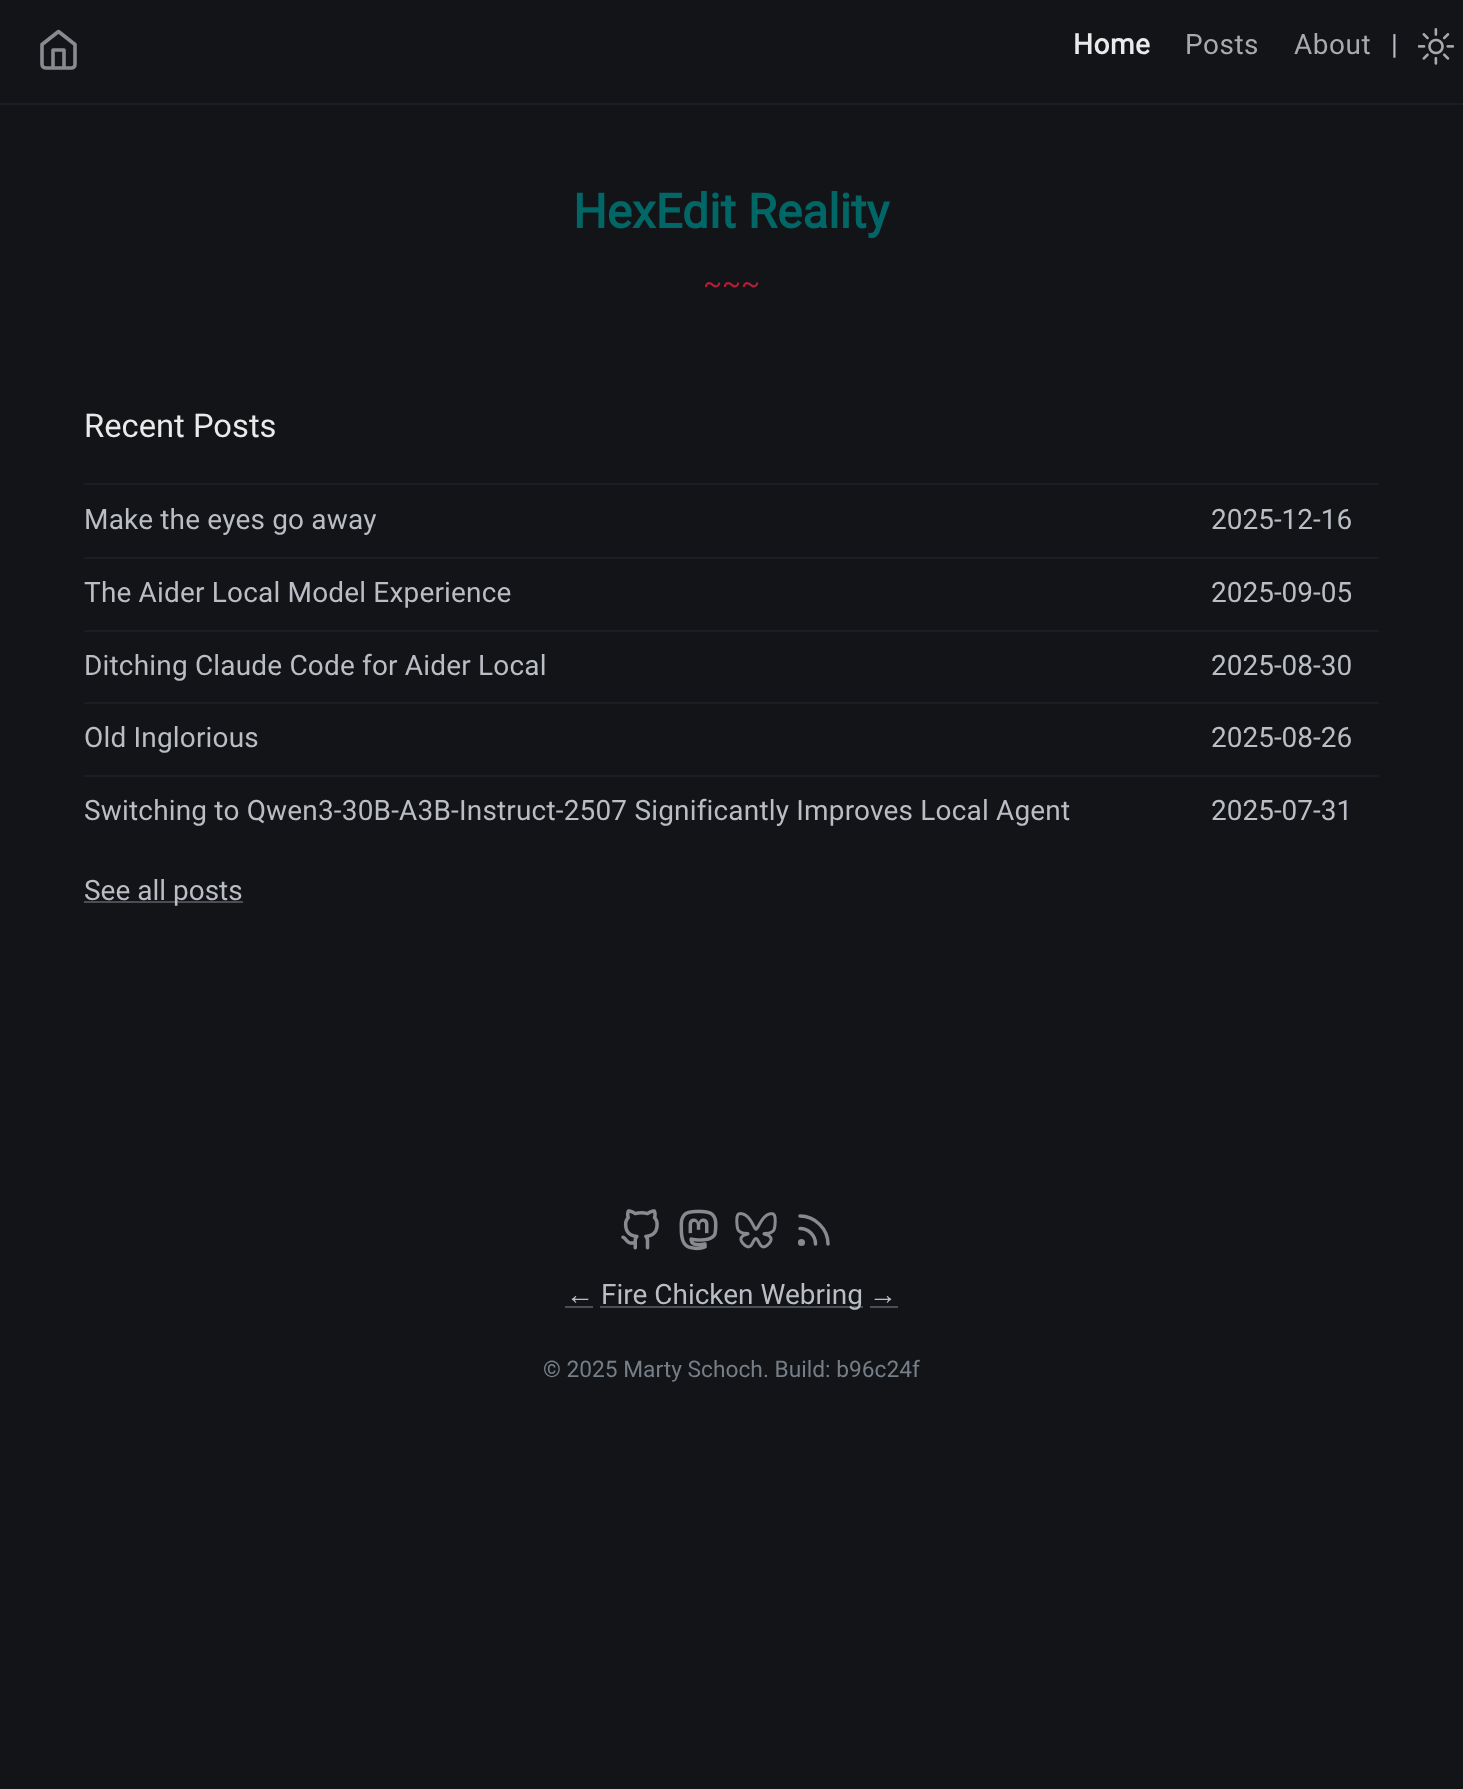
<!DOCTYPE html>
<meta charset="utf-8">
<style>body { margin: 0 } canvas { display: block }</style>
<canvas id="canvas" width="1463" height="1789"></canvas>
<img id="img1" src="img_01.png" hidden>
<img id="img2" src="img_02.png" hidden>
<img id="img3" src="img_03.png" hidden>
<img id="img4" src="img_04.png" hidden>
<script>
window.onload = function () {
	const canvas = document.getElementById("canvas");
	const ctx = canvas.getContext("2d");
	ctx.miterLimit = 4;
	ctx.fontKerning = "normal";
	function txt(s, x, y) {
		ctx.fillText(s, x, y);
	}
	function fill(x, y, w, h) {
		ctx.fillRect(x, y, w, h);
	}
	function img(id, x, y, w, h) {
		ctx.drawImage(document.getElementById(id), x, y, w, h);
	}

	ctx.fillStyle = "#131418";
	fill(0, 0, 1463, 1789);
	ctx.fillStyle = "#1B1D25";
	fill(0, 103, 1463, 2);
	ctx.beginPath();
	ctx.moveTo(42, 44.5);
	ctx.lineTo(58.5, 31.5);
	ctx.lineTo(75, 44.5);
	ctx.lineTo(75, 64.5);
	ctx.bezierCurveTo(75, 66.5, 73.5, 68, 71.5, 68);
	ctx.lineTo(46, 68);
	ctx.bezierCurveTo(44, 68, 42, 66.5, 42, 64.5);
	ctx.closePath();
	ctx.moveTo(53, 68);
	ctx.lineTo(53, 50);
	ctx.lineTo(64, 50);
	ctx.lineTo(64, 68);
	ctx.strokeStyle = "#888A90";
	ctx.lineWidth = 3.6;
	ctx.lineCap = "round";
	ctx.lineJoin = "round";
	ctx.stroke();
	img("img1", 1418, 28, 36, 37);
	fill(84, 483, 1295, 2);
	fill(84, 557, 1295, 2);
	fill(84, 630, 1295, 2);
	fill(84, 702, 1295, 2);
	fill(84, 775, 1295, 2);
	ctx.fillStyle = "#4A4D56";
	fill(84, 901, 159, 2);
	img("img2", 621, 1209, 38, 41);
	img("img3", 679, 1209, 39, 42);
	img("img4", 735, 1212, 42, 37);
	ctx.beginPath();
	ctx.moveTo(800, 1228.5);
	ctx.bezierCurveTo(808.5, 1228.5, 815.5, 1235.5, 815.5, 1244);
	ctx.moveTo(800, 1216);
	ctx.bezierCurveTo(815, 1216, 828, 1229, 828, 1244);
	ctx.lineWidth = 3.5;
	ctx.stroke();
	ctx.beginPath();
	ctx.arc(801.5, 1242.5, 1.8, 0, Math.PI * 2);
	ctx.stroke();
	fill(565, 1306, 28, 2);
	fill(600, 1306, 263, 2);
	fill(870, 1306, 28, 2);
	ctx.letterSpacing = "0.5px";
	ctx.font = "bold 28px Roboto";
	ctx.fillStyle = "#EAEAEA";
	txt("Home", 1073, 54);
	ctx.font = "28px Roboto";
	ctx.fillStyle = "#AAAAAB";
	txt("Posts", 1185, 54);
	txt("About", 1294, 54);
	ctx.letterSpacing = "0px";
	ctx.fillStyle = "#BABDC4";
	txt("|", 1391, 54);
	ctx.font = "bold 47.5px Roboto";
	ctx.fillStyle = "#006666";
	txt("HexEdit Reality", 573, 228);
	ctx.font = "28px Roboto";
	ctx.fillStyle = "#B21D37";
	txt("~~~", 703, 293);
	ctx.font = "32.75px Roboto";
	ctx.fillStyle = "#EAEAEA";
	txt("Recent Posts", 84, 437);
	ctx.letterSpacing = "0.18px";
	ctx.font = "28px Roboto";
	ctx.fillStyle = "#BABDC4";
	txt("Make the eyes go away", 84, 529);
	ctx.letterSpacing = "0px";
	txt("2025-12-16", 1211, 529);
	ctx.letterSpacing = "0.18px";
	txt("The Aider Local Model Experience", 84, 602);
	ctx.letterSpacing = "0px";
	txt("2025-09-05", 1211, 602);
	ctx.letterSpacing = "0.18px";
	txt("Ditching Claude Code for Aider Local", 84, 675);
	ctx.letterSpacing = "0px";
	txt("2025-08-30", 1211, 675);
	ctx.letterSpacing = "0.18px";
	txt("Old Inglorious", 84, 747);
	ctx.letterSpacing = "0px";
	txt("2025-08-26", 1211, 747);
	ctx.letterSpacing = "0.18px";
	txt("Switching to Qwen3-30B-A3B-Instruct-2507 Significantly Improves Local Agent", 84, 820);
	ctx.letterSpacing = "0px";
	txt("2025-07-31", 1211, 820);
	txt("See all posts", 84, 900);
	ctx.font = "28px Liberation Sans";
	txt("←", 566, 1304);
	ctx.font = "28px Roboto";
	txt("Fire Chicken Webring", 601, 1304);
	ctx.font = "28px Liberation Sans";
	txt("→", 869, 1304);
	ctx.font = "22.75px Roboto";
	ctx.fillStyle = "#767F87";
	txt("© 2025 Marty Schoch. Build: b96c24f", 543, 1377);
};
</script>
